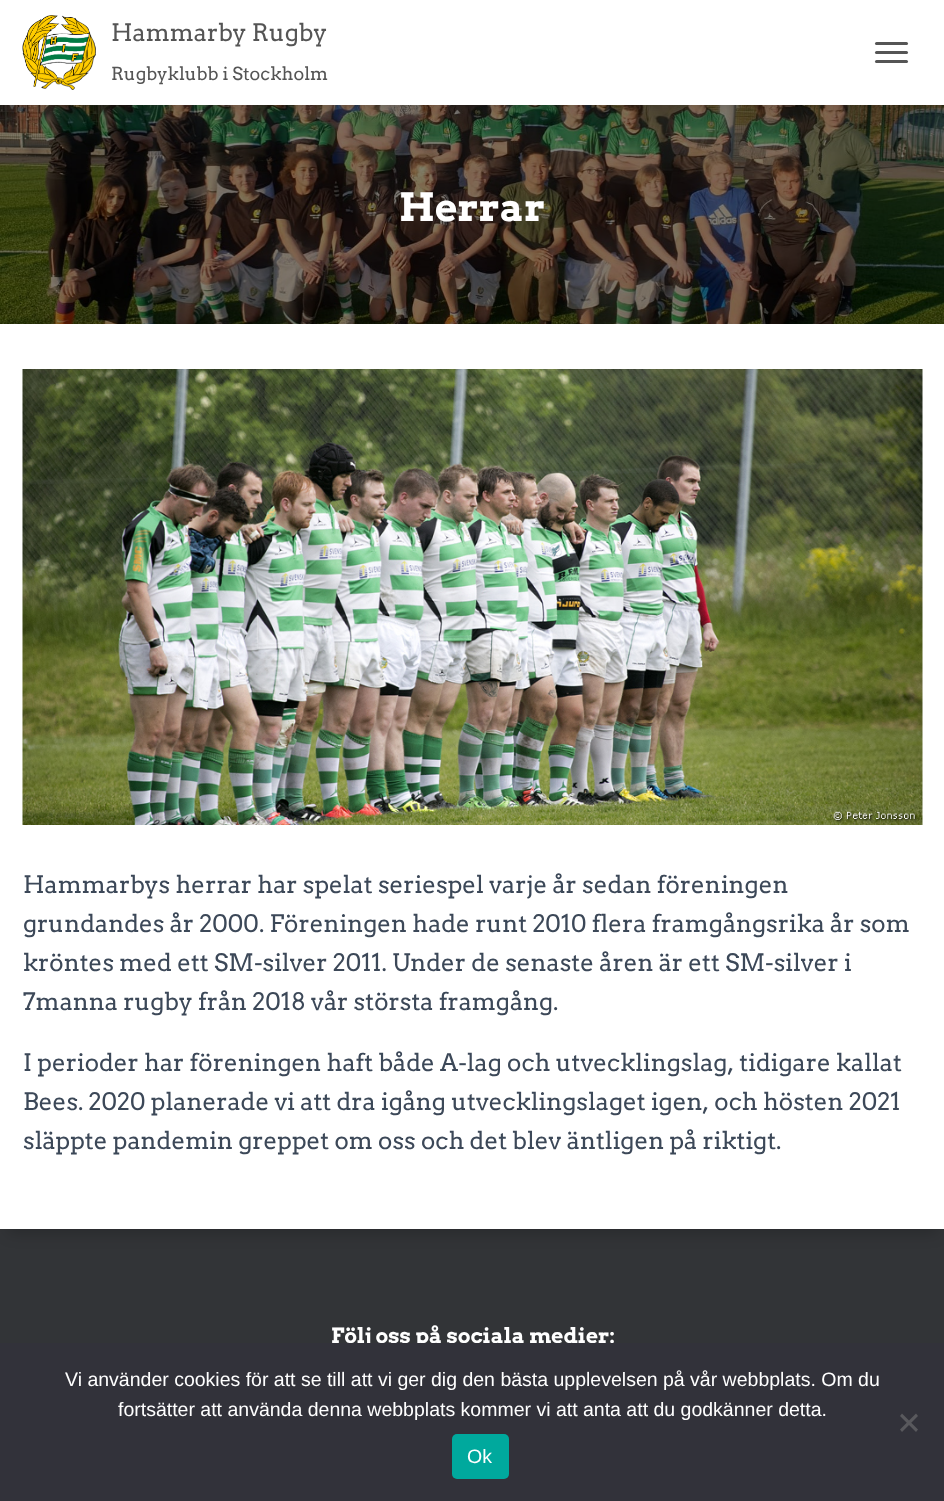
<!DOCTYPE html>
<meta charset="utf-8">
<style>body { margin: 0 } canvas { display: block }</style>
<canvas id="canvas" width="944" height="1501"></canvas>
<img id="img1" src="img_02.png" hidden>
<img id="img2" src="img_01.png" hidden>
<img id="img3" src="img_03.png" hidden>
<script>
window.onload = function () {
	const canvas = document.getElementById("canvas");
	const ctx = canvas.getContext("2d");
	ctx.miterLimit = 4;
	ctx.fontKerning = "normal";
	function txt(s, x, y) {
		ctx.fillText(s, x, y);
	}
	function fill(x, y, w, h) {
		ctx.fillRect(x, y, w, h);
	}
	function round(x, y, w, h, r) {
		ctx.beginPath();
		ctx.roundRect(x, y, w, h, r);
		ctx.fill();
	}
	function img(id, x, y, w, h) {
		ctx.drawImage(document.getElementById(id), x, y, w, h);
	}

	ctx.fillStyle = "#323437";
	fill(0, 0, 944, 1501);
	img("img1", 0, 105, 944, 219);
	ctx.fillStyle = "rgba(0, 0, 0, 0.5)";
	fill(0, 105, 944, 219);
	ctx.fillStyle = "rgba(0, 0, 0, 0.42)";
	ctx.filter = "blur(7.5px)";
	ctx.beginPath();
	ctx.rect(9, 11, 927, 87);
	ctx.fill();
	ctx.filter = "none";
	ctx.fillStyle = "#FFFFFF";
	fill(0, 0, 944, 105);
	img("img2", 22, 15, 74, 75);
	ctx.fillStyle = "#555555";
	round(875, 42, 33, 3, 1.5);
	round(875, 51, 33, 3, 1.5);
	round(875, 60, 33, 3, 1.5);
	ctx.fillStyle = "rgba(0, 0, 0, 0.2)";
	ctx.filter = "blur(7.5px)";
	ctx.beginPath();
	ctx.rect(8, 344, 930, 889);
	ctx.fill();
	ctx.filter = "none";
	ctx.fillStyle = "#FFFFFF";
	fill(0, 324, 944, 905);
	img("img3", 22, 369, 901, 456);
	ctx.font = "24px Arvo";
	ctx.fillStyle = "#555555";
	txt("Hammarby Rugby", 111, 41);
	ctx.font = "18px Arvo";
	txt("Rugbyklubb i Stockholm", 111, 80);
	ctx.font = "bold 39px Arvo";
	ctx.fillStyle = "#FFFFFF";
	txt("Herrar", 399, 221);
	ctx.font = "24px Arvo";
	ctx.fillStyle = "#3C4858";
	txt("Hammarbys herrar har spelat seriespel varje år sedan föreningen", 23, 893);
	txt("grundandes år 2000. Föreningen hade runt 2010 flera framgångsrika år som", 23, 932);
	txt("kröntes med ett SM-silver 2011. Under de senaste åren är ett SM-silver i", 23, 971);
	txt("7manna rugby från 2018 vår största framgång.", 23, 1010);
	txt("I perioder har föreningen haft både A-lag och utvecklingslag, tidigare kallat", 23, 1071);
	txt("Bees. 2020 planerade vi att dra igång utvecklingslaget igen, och hösten 2021", 23, 1110);
	txt("släppte pandemin greppet om oss och det blev äntligen på riktigt.", 23, 1149);
	ctx.font = "bold 21px Arvo";
	ctx.fillStyle = "#FFFFFF";
	txt("Följ oss på sociala medier:", 331, 1343);
	ctx.fillStyle = "#32323A";
	fill(0, 1343, 944, 158);
	ctx.font = "19.5px Liberation Sans";
	ctx.fillStyle = "#FFFFFF";
	txt("Vi använder cookies för att se till att vi ger dig den bästa upplevelsen på vår webbplats. Om du", 65, 1386);
	txt("fortsätter att använda denna webbplats kommer vi att anta att du godkänner detta.", 118, 1416);
	ctx.fillStyle = "#59595D";
	ctx.beginPath();
	ctx.moveTo(916, 1413.5);
	ctx.lineTo(918, 1416);
	ctx.lineTo(902, 1432);
	ctx.lineTo(900, 1429.5);
	ctx.closePath();
	ctx.fill();
	ctx.beginPath();
	ctx.moveTo(900, 1416);
	ctx.lineTo(902, 1413.5);
	ctx.lineTo(918, 1429.5);
	ctx.lineTo(916, 1432);
	ctx.closePath();
	ctx.fill();
	ctx.fillStyle = "#00A99D";
	round(452, 1434, 57, 45, 5);
	ctx.fillStyle = "#FFFFFF";
	txt("Ok", 467, 1463);
};
</script>
